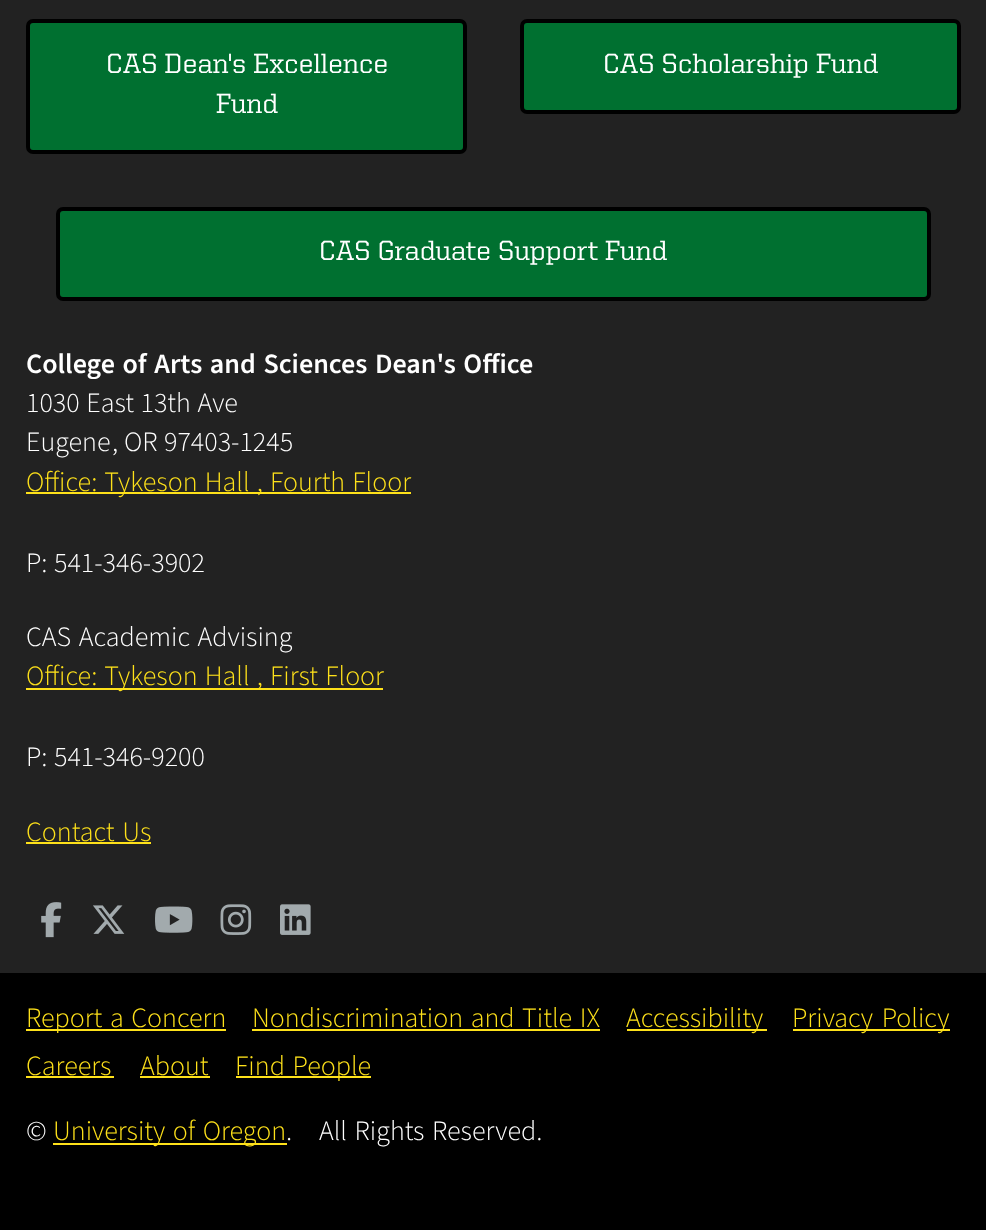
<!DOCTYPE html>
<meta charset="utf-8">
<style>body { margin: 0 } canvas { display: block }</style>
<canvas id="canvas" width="986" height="1230"></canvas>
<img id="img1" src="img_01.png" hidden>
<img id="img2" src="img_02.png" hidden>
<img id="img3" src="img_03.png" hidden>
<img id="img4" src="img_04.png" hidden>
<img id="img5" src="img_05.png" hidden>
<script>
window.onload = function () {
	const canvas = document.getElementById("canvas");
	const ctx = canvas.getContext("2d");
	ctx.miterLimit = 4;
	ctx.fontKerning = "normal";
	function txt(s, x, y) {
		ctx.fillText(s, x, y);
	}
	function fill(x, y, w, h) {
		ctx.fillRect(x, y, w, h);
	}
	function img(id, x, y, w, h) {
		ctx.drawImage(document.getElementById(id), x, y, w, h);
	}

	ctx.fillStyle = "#000000";
	fill(0, 0, 986, 1230);
	ctx.fillStyle = "#222222";
	fill(0, 0, 986, 973);
	ctx.fillStyle = "#007030";
	ctx.beginPath();
	ctx.roundRect(28, 21, 437, 131, 5);
	ctx.fill();
	ctx.strokeStyle = "#000000";
	ctx.lineWidth = 4;
	ctx.stroke();
	ctx.beginPath();
	ctx.roundRect(522, 21, 437, 91, 5);
	ctx.fill();
	ctx.stroke();
	ctx.beginPath();
	ctx.roundRect(58, 209, 871, 90, 5);
	ctx.fill();
	ctx.stroke();
	ctx.fillStyle = "#FEE11A";
	fill(26, 492, 385, 2);
	fill(26, 688, 357, 2);
	fill(26, 842, 125, 2);
	img("img1", 41, 902, 21, 36);
	img("img2", 93, 905, 32, 29);
	img("img3", 155, 906, 38, 27);
	img("img4", 220, 904, 32, 31);
	img("img5", 280, 904, 31, 31);
	fill(26, 1029, 200, 2);
	fill(252, 1029, 348, 2);
	fill(627, 1029, 140, 2);
	fill(793, 1029, 157, 2);
	fill(26, 1076, 88, 2);
	fill(140, 1076, 70, 2);
	fill(236, 1076, 135, 2);
	fill(53, 1143, 234, 2);
	ctx.font = "500 28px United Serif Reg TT";
	ctx.fillStyle = "#FFFFFF";
	txt("CAS Dean's Excellence", 106, 73);
	txt("Fund", 216, 113);
	txt("CAS Scholarship Fund", 603, 73);
	txt("CAS Graduate Support Fund", 319, 260);
	ctx.wordSpacing = "2px";
	ctx.font = "600 28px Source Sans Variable";
	txt("College of Arts and Sciences Dean's Office", 26, 373);
	ctx.wordSpacing = "1px";
	ctx.font = "300 28px Source Sans Variable";
	txt("1030 East 13th Ave", 26, 412);
	ctx.wordSpacing = "0px";
	txt("Eugene", 26, 451);
	txt(",", 112, 451);
	txt("OR", 124, 451);
	txt("97403-1245", 164, 451);
	ctx.wordSpacing = "1.5px";
	ctx.fillStyle = "#FEE11A";
	txt("Office: Tykeson Hall , Fourth Floor", 26, 491);
	ctx.wordSpacing = "0px";
	ctx.fillStyle = "#FFFFFF";
	txt("P:", 26, 572);
	txt("541-346-3902", 54, 572);
	ctx.wordSpacing = "2px";
	txt("CAS Academic Advising", 26, 646);
	ctx.wordSpacing = "1.5px";
	ctx.fillStyle = "#FEE11A";
	txt("Office: Tykeson Hall , First Floor", 26, 685);
	ctx.wordSpacing = "0px";
	ctx.fillStyle = "#FFFFFF";
	txt("P:", 26, 766);
	txt("541-346-9200", 54, 766);
	ctx.wordSpacing = "2px";
	ctx.fillStyle = "#FEE11A";
	txt("Contact Us", 26, 841);
	txt("Report a Concern", 26, 1027);
	txt("Nondiscrimination and Title IX", 252, 1027);
	ctx.wordSpacing = "0px";
	txt("Accessibility", 626, 1027);
	ctx.wordSpacing = "3px";
	txt("Privacy Policy", 792, 1027);
	ctx.wordSpacing = "0px";
	txt("Careers", 26, 1075);
	txt("About", 140, 1075);
	ctx.wordSpacing = "2px";
	txt("Find People", 235, 1075);
	ctx.wordSpacing = "0px";
	ctx.fillStyle = "#FFFFFF";
	txt("©", 26, 1140);
	ctx.wordSpacing = "2px";
	ctx.fillStyle = "#FEE11A";
	txt("University of Oregon", 53, 1140);
	ctx.wordSpacing = "0px";
	ctx.fillStyle = "#FFFFFF";
	txt(".", 286, 1140);
	ctx.wordSpacing = "2px";
	txt("All Rights Reserved.", 319, 1140);
};
</script>
